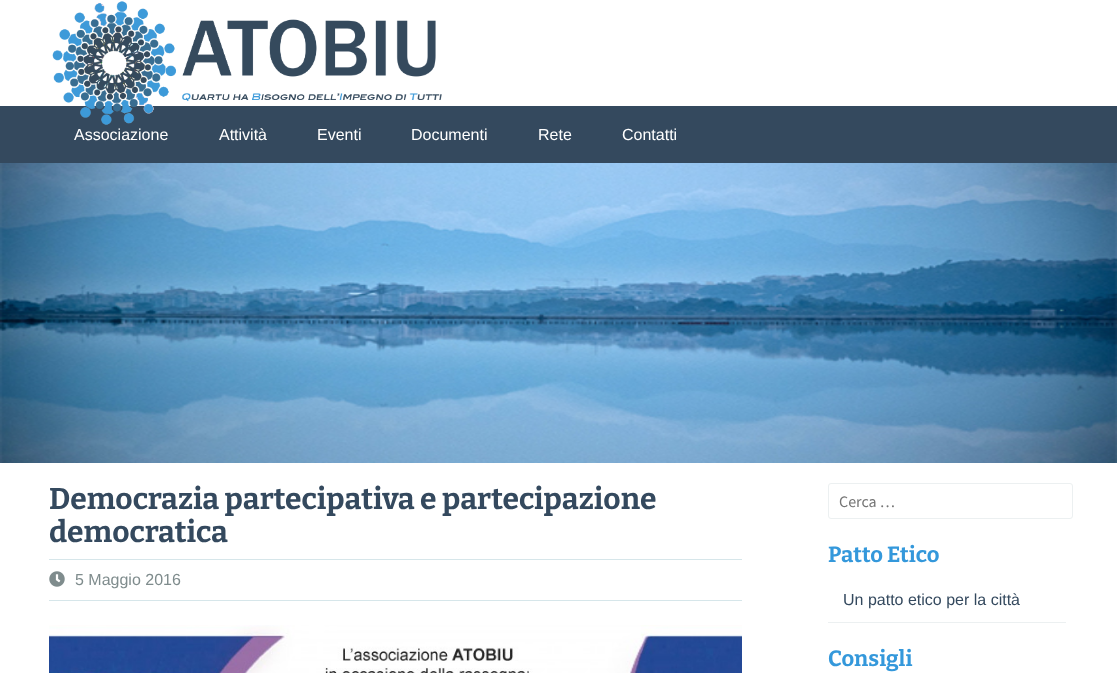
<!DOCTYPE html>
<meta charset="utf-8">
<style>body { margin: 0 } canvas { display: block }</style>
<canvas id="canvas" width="1117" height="673"></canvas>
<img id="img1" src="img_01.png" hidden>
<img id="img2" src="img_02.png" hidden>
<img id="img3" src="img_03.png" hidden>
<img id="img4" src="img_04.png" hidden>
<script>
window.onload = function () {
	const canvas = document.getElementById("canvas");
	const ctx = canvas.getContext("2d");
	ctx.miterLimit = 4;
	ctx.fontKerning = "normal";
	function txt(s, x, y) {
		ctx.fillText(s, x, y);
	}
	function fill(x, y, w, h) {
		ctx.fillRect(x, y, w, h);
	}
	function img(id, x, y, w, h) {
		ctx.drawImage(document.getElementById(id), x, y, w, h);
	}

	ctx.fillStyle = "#FFFFFF";
	fill(0, 0, 1117, 673);
	ctx.fillStyle = "#34495E";
	fill(0, 106, 1117, 57);
	img("img1", 52, 1, 390, 124);
	img("img2", 0, 163, 1117, 300);
	ctx.fillStyle = "#D6E6EA";
	fill(49, 559, 693, 1);
	fill(49, 600, 693, 1);
	img("img3", 49, 571, 16, 16);
	img("img4", 49, 625, 693, 48);
	ctx.beginPath();
	ctx.roundRect(828.5, 483.5, 244, 35, 2.5);
	ctx.strokeStyle = "#ECF0F1";
	ctx.stroke();
	ctx.fillStyle = "#ECF0F1";
	fill(828, 622, 238, 1);
	ctx.font = "16px Liberation Sans";
	ctx.fillStyle = "#FFFFFF";
	txt("Associazione", 74, 140);
	txt("Attività", 219, 140);
	txt("Eventi", 317, 140);
	txt("Documenti", 411, 140);
	txt("Rete", 538, 140);
	txt("Contatti", 622, 140);
	ctx.font = "bold 30px Bitter";
	ctx.fillStyle = "#34495E";
	txt("Democrazia partecipativa e partecipazione", 49, 509);
	txt("democratica", 49, 542);
	ctx.font = "16px Liberation Sans";
	ctx.fillStyle = "#7F8C8D";
	txt("5 Maggio 2016", 75, 585);
	ctx.font = "16px Source Sans Pro";
	ctx.fillStyle = "#757575";
	txt("Cerca …", 839, 507);
	ctx.font = "bold 22px Bitter";
	ctx.fillStyle = "#3498DB";
	txt("Patto Etico", 828, 562);
	ctx.font = "16px Liberation Sans";
	ctx.fillStyle = "#34495E";
	txt("Un patto etico per la città", 843, 605);
	ctx.font = "bold 22px Bitter";
	ctx.fillStyle = "#3498DB";
	txt("Consigli", 828, 666);
};
</script>
